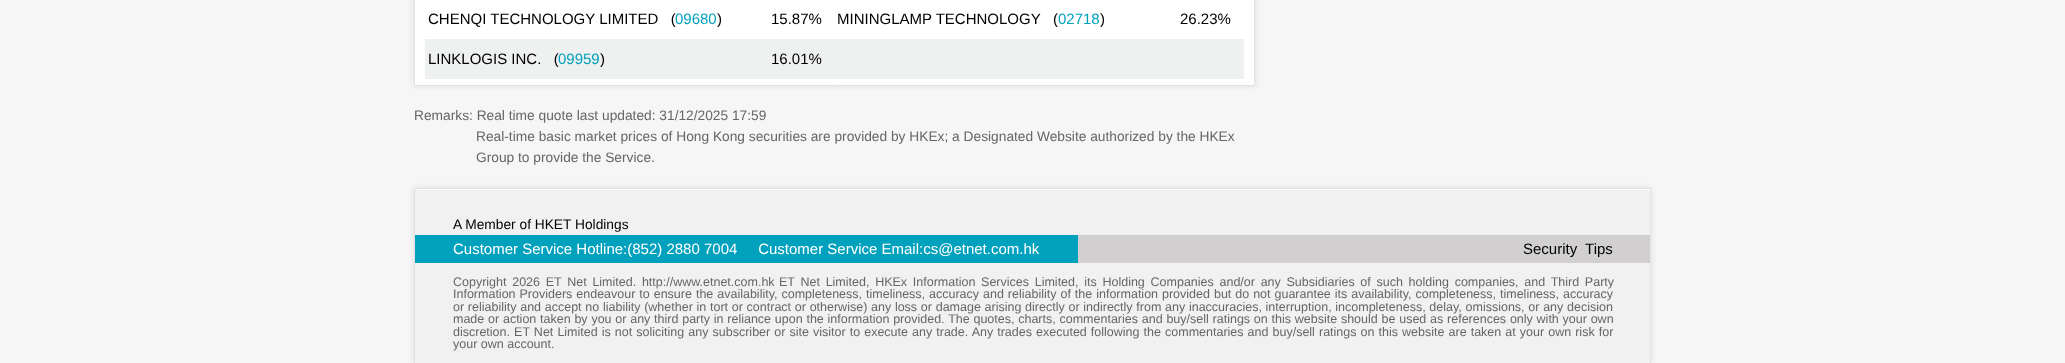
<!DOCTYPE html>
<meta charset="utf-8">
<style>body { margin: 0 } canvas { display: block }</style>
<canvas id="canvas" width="2065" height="363"></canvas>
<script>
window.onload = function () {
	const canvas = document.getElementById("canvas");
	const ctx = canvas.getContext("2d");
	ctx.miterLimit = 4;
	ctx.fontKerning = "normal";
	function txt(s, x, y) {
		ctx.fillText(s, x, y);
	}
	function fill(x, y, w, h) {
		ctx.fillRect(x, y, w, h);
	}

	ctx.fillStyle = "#F6F6F6";
	fill(0, 0, 2065, 363);
	ctx.fillStyle = "rgba(0, 0, 0, 0.1)";
	ctx.filter = "blur(3px)";
	ctx.beginPath();
	ctx.rect(414, -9, 841, 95);
	ctx.fill();
	ctx.filter = "none";
	ctx.fillStyle = "#FFFFFF";
	ctx.beginPath();
	ctx.rect(414.5, -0.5, 840, 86);
	ctx.fill();
	ctx.strokeStyle = "#E2E2E2";
	ctx.stroke();
	ctx.fillStyle = "#EFF0F0";
	fill(425, 39, 819, 40);
	ctx.fillStyle = "rgba(0, 0, 0, 0.1)";
	ctx.filter = "blur(3px)";
	ctx.beginPath();
	ctx.rect(414, 188, 1237, 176);
	ctx.fill();
	ctx.filter = "none";
	ctx.strokeRect(414.5, 188.5, 1236, 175);
	ctx.fillStyle = "#F2F1F1";
	fill(415, 190, 1235, 173);
	ctx.fillStyle = "#FFFFFF";
	fill(415, 189, 1235, 1);
	ctx.fillStyle = "#00A1BD";
	fill(415, 235, 663, 28);
	ctx.fillStyle = "#D1CFCF";
	fill(1078, 235, 572, 28);
	ctx.font = "15px Liberation Sans";
	ctx.fillStyle = "#000000";
	txt("CHENQI TECHNOLOGY LIMITED   (", 428, 24);
	ctx.fillStyle = "#00A1BD";
	txt("09680", 675, 24);
	ctx.fillStyle = "#000000";
	txt(")", 717, 24);
	txt("15.87%", 771, 24);
	txt("MININGLAMP TECHNOLOGY   (", 837, 24);
	ctx.fillStyle = "#00A1BD";
	txt("02718", 1058, 24);
	ctx.fillStyle = "#000000";
	txt(")", 1100, 24);
	txt("26.23%", 1180, 24);
	txt("LINKLOGIS INC.   (", 428, 64);
	ctx.fillStyle = "#00A1BD";
	txt("09959", 558, 64);
	ctx.fillStyle = "#000000";
	txt(")", 600, 64);
	txt("16.01%", 771, 64);
	ctx.font = "13.75px Liberation Sans";
	ctx.fillStyle = "#666666";
	txt("Remarks: Real time quote last updated: 31/12/2025 17:59", 414, 120);
	txt("Real-time basic market prices of Hong Kong securities are provided by HKEx; a Designated Website authorized by the HKEx", 476, 141);
	txt("Group to provide the Service.", 476, 162);
	ctx.fillStyle = "#000000";
	txt("A Member of HKET Holdings", 453, 229);
	ctx.font = "15px Liberation Sans";
	ctx.fillStyle = "#FFFFFF";
	txt("Customer Service Hotline:(852) 2880 7004     Customer Service Email:cs@etnet.com.hk", 453, 254);
	ctx.wordSpacing = "4px";
	ctx.fillStyle = "#000000";
	txt("Security Tips", 1523, 254);
	ctx.wordSpacing = "2.25px";
	ctx.font = "12.5px Liberation Sans";
	ctx.fillStyle = "#666666";
	txt("Copyright 2026 ET Net Limited. http://www.etnet.com.hk", 453, 286);
	txt("ET Net Limited, HKEx Information Services Limited, its Holding Companies and/or any Subsidiaries of such holding companies, and Third Party", 779, 286);
	ctx.wordSpacing = "0.5px";
	txt("Information Providers endeavour to ensure the availability, completeness, timeliness, accuracy and reliability of the information provided but do not guarantee its availability, completeness, timeliness, accuracy", 453, 298);
	ctx.wordSpacing = "0.25px";
	txt("or reliability and accept no liability (whether in tort or contract or otherwise) any loss or damage arising directly or indirectly from any inaccuracies, interruption, incompleteness, delay, omissions, or any decision", 453, 311);
	ctx.wordSpacing = "0.3px";
	txt("made or action taken by you or any third party in reliance upon the information provided. The quotes, charts, commentaries and buy/sell ratings on this website should be used as references only with your own", 453, 323);
	ctx.wordSpacing = "0.6px";
	txt("discretion. ET Net Limited is not soliciting any subscriber or site visitor to execute any trade. Any trades executed following the commentaries and buy/sell ratings on this website are taken at your own risk for", 453, 336);
	ctx.wordSpacing = "0px";
	txt("your own account.", 453, 348);
};
</script>
